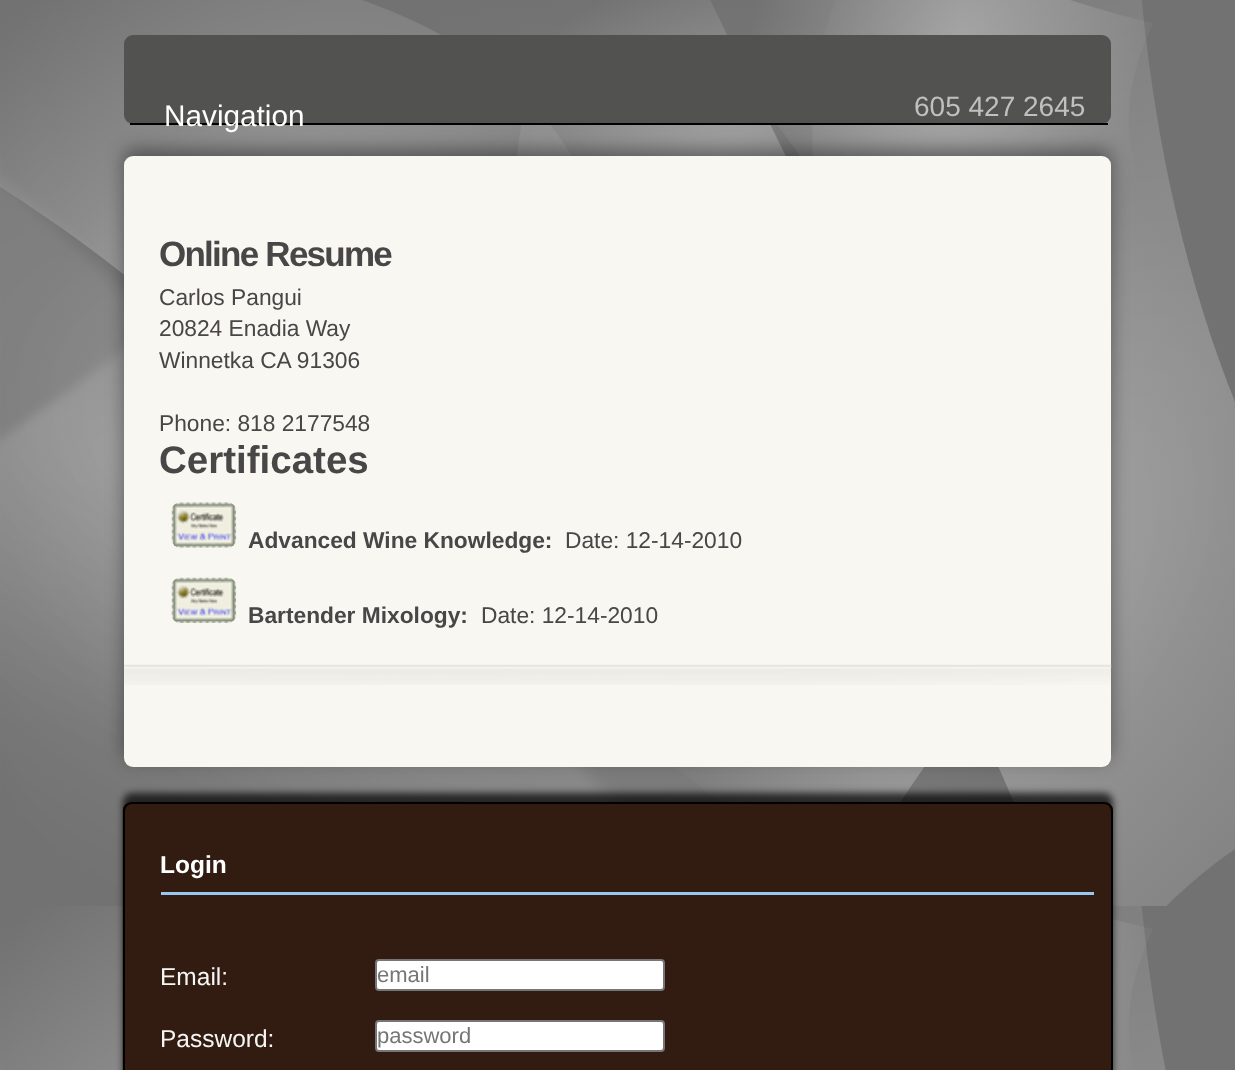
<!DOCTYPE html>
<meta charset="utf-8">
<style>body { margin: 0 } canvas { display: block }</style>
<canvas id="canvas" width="1235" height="1070"></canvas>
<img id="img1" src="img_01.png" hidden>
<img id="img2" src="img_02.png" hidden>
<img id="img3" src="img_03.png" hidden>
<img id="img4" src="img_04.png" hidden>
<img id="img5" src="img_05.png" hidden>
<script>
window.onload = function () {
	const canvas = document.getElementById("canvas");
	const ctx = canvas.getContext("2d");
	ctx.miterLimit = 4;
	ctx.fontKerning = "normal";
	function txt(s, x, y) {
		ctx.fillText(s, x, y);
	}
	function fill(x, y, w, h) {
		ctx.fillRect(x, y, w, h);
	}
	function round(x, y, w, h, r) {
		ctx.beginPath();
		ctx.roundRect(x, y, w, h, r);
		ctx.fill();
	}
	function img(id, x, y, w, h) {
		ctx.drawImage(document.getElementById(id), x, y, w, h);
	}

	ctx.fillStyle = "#FFFFFF";
	fill(0, 0, 1235, 1070);
	img("img1", 0, 0, 1235, 1070);
	ctx.fillStyle = "rgba(0, 0, 0, 0.4)";
	ctx.filter = "blur(9px)";
	ctx.beginPath();
	ctx.roundRect(124, 149, 987, 611, 9);
	ctx.fill();
	ctx.filter = "none";
	ctx.fillStyle = "#525250";
	round(124, 35, 987, 89, 9);
	ctx.fillStyle = "#000000";
	fill(130, 123, 978, 2);
	ctx.fillStyle = "#F9F7F1";
	round(124, 156, 987, 611, 9);
	img("img2", 124, 664, 988, 21);
	img("img3", 171, 502, 66, 46);
	img("img4", 171, 577, 66, 46);
	ctx.fillStyle = "rgba(0, 0, 0, 0.7)";
	ctx.filter = "blur(3.5px)";
	ctx.beginPath();
	ctx.roundRect(123, 793, 990, 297, 9);
	ctx.fill();
	ctx.filter = "none";
	img("img5", 122, 801, 991, 269);
	ctx.beginPath();
	ctx.roundRect(124, 803, 988, 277, 8);
	ctx.strokeStyle = "#000000";
	ctx.lineWidth = 2;
	ctx.stroke();
	ctx.fillStyle = "#98C8EF";
	fill(161, 892, 933, 3);
	ctx.fillStyle = "#FFFFFF";
	ctx.beginPath();
	ctx.roundRect(376, 960, 288, 30, 3);
	ctx.fill();
	ctx.strokeStyle = "#767676";
	ctx.stroke();
	ctx.beginPath();
	ctx.roundRect(376, 1021, 288, 30, 3);
	ctx.fill();
	ctx.stroke();
	ctx.font = "29.75px Liberation Sans";
	txt("Navigation", 164, 126);
	ctx.font = "28px Liberation Sans";
	ctx.fillStyle = "#C0C0C0";
	txt("605 427 2645", 914, 116);
	ctx.letterSpacing = "-1.75px";
	ctx.font = "bold 35px Liberation Sans";
	ctx.fillStyle = "#484646";
	txt("Online Resume", 159, 266);
	ctx.letterSpacing = "0px";
	ctx.font = "22.75px Liberation Sans";
	txt("Carlos Pangui", 159, 305);
	txt("20824 Enadia Way", 159, 336);
	txt("Winnetka CA 91306", 159, 368);
	txt("Phone: 818 2177548", 159, 431);
	ctx.font = "bold 38.5px Liberation Sans";
	txt("Certificates", 159, 473);
	ctx.font = "bold 22.75px Liberation Sans";
	txt("Advanced Wine Knowledge:", 248, 548);
	ctx.font = "22.75px Liberation Sans";
	txt("Date: 12-14-2010", 565, 548);
	ctx.font = "bold 22.75px Liberation Sans";
	txt("Bartender Mixology:", 248, 623);
	ctx.font = "22.75px Liberation Sans";
	txt("Date: 12-14-2010", 481, 623);
	ctx.font = "bold 24.5px Liberation Sans";
	ctx.fillStyle = "#FFFFFF";
	txt("Login", 160, 873);
	ctx.font = "24.5px Liberation Sans";
	ctx.fillStyle = "#F5F6F6";
	txt("Email:", 160, 985);
	txt("Password:", 160, 1047);
	ctx.font = "22px Liberation Sans";
	ctx.fillStyle = "#757575";
	txt("email", 377, 982);
	txt("password", 377, 1043);
};
</script>
